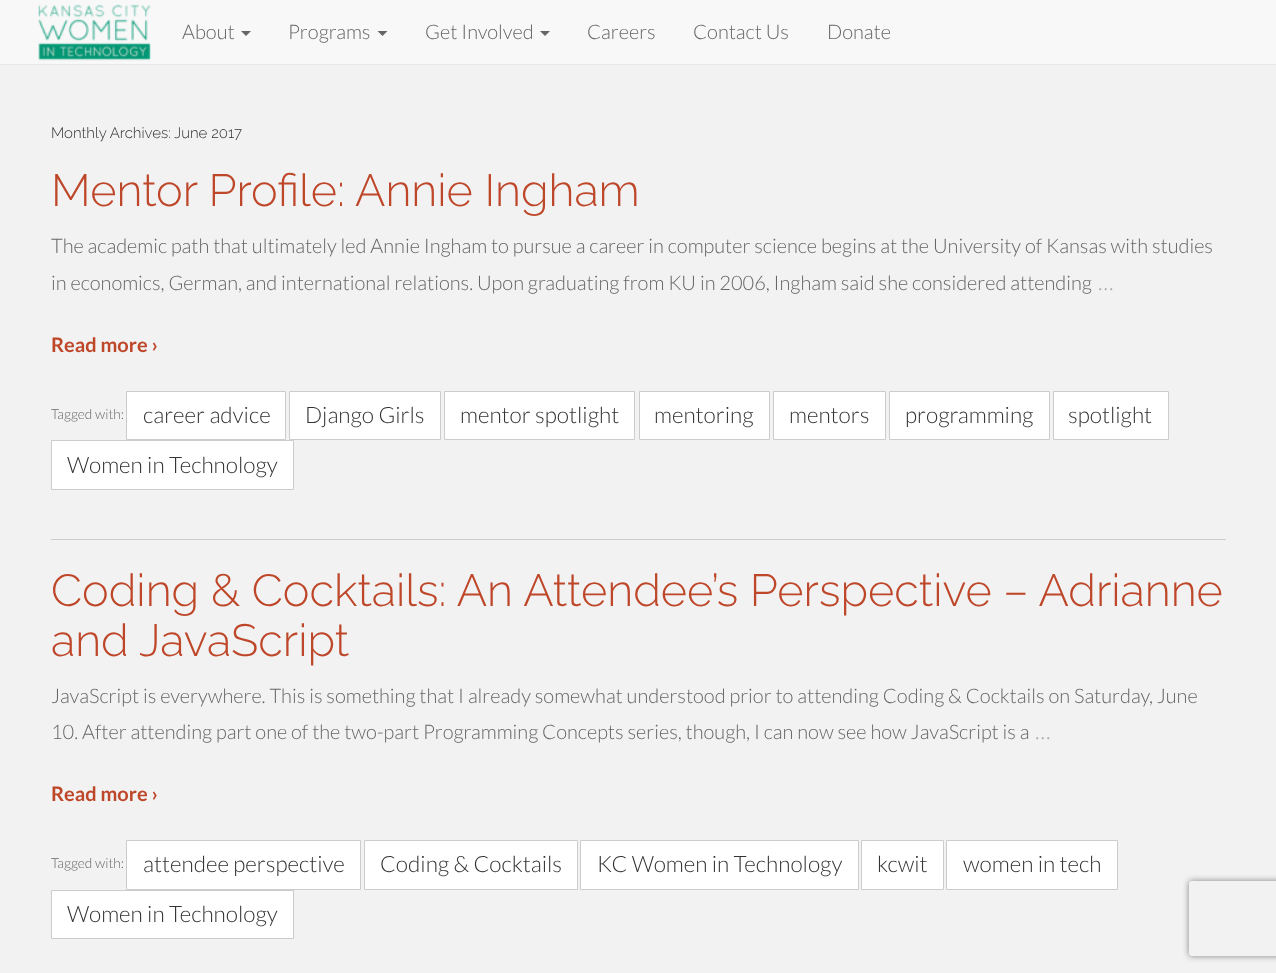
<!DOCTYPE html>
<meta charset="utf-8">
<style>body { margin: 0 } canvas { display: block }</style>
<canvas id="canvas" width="1276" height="973"></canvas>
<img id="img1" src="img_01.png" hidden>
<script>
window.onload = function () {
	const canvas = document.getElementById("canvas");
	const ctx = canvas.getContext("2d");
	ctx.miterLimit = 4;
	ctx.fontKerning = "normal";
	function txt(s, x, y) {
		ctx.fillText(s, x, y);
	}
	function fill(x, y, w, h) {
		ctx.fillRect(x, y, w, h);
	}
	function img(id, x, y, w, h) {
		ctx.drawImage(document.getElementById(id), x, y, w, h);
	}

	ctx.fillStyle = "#F2F2F2";
	fill(0, 0, 1276, 973);
	ctx.fillStyle = "#F8F8F8";
	fill(0, 0, 1276, 64);
	ctx.fillStyle = "#E7E7E7";
	fill(0, 64, 1276, 1);
	img("img1", 38, 4, 113, 57);
	ctx.fillStyle = "#666666";
	ctx.beginPath();
	ctx.moveTo(241, 31);
	ctx.lineTo(251, 31);
	ctx.lineTo(246, 36);
	ctx.closePath();
	ctx.fill();
	ctx.beginPath();
	ctx.moveTo(377.5, 31);
	ctx.lineTo(387.5, 31);
	ctx.lineTo(382.5, 36);
	ctx.closePath();
	ctx.fill();
	ctx.beginPath();
	ctx.moveTo(540, 31);
	ctx.lineTo(550, 31);
	ctx.lineTo(545, 36);
	ctx.closePath();
	ctx.fill();
	ctx.fillStyle = "#FFFFFF";
	ctx.beginPath();
	ctx.rect(126.5, 391.5, 159, 48);
	ctx.fill();
	ctx.strokeStyle = "#CCCCCC";
	ctx.stroke();
	ctx.beginPath();
	ctx.rect(289.5, 391.5, 151, 48);
	ctx.fill();
	ctx.stroke();
	ctx.beginPath();
	ctx.rect(444.5, 391.5, 190, 48);
	ctx.fill();
	ctx.stroke();
	ctx.beginPath();
	ctx.rect(639.5, 391.5, 130, 48);
	ctx.fill();
	ctx.stroke();
	ctx.beginPath();
	ctx.rect(773.5, 391.5, 112, 48);
	ctx.fill();
	ctx.stroke();
	ctx.beginPath();
	ctx.rect(889.5, 391.5, 160, 48);
	ctx.fill();
	ctx.stroke();
	ctx.beginPath();
	ctx.rect(1053.5, 391.5, 115, 48);
	ctx.fill();
	ctx.stroke();
	ctx.beginPath();
	ctx.rect(51.5, 440.5, 242, 49);
	ctx.fill();
	ctx.stroke();
	ctx.fillStyle = "#CCCCCC";
	fill(51, 539, 1175, 1);
	ctx.fillStyle = "#FFFFFF";
	ctx.beginPath();
	ctx.rect(126.5, 840.5, 234, 49);
	ctx.fill();
	ctx.stroke();
	ctx.beginPath();
	ctx.rect(364.5, 840.5, 213, 49);
	ctx.fill();
	ctx.stroke();
	ctx.beginPath();
	ctx.rect(580.5, 840.5, 278, 49);
	ctx.fill();
	ctx.stroke();
	ctx.beginPath();
	ctx.rect(861.5, 840.5, 82, 49);
	ctx.fill();
	ctx.stroke();
	ctx.beginPath();
	ctx.rect(946.5, 840.5, 171, 49);
	ctx.fill();
	ctx.stroke();
	ctx.beginPath();
	ctx.rect(51.5, 890.5, 242, 48);
	ctx.fill();
	ctx.stroke();
	ctx.save();
	ctx.beginPath();
	ctx.moveTo(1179, 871);
	ctx.lineTo(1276, 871);
	ctx.lineTo(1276, 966);
	ctx.lineTo(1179, 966);
	ctx.closePath();
	ctx.moveTo(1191.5, 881);
	ctx.lineTo(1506.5, 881);
	ctx.bezierCurveTo(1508, 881, 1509, 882, 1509, 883.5);
	ctx.lineTo(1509, 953.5);
	ctx.bezierCurveTo(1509, 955, 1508, 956, 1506.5, 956);
	ctx.lineTo(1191.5, 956);
	ctx.bezierCurveTo(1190, 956, 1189, 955, 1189, 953.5);
	ctx.lineTo(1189, 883.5);
	ctx.bezierCurveTo(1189, 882, 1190, 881, 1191.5, 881);
	ctx.closePath();
	ctx.clip("evenodd");
	ctx.fillStyle = "#808080";
	ctx.filter = "blur(3px)";
	ctx.beginPath();
	ctx.roundRect(1189, 881, 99, 75, 2.5);
	ctx.fill();
	ctx.filter = "none";
	ctx.restore();
	ctx.font = "300 20px Lato";
	ctx.fillStyle = "#666666";
	txt("About", 182, 39);
	txt("Programs", 288, 39);
	txt("Get Involved", 425, 39);
	txt("Careers", 587, 39);
	txt("Contact Us", 693, 39);
	txt("Donate", 827, 39);
	ctx.font = "300 15px Raleway";
	ctx.fillStyle = "#333333";
	txt("Monthly Archives:", 51, 138);
	txt("June 2017", 174, 138);
	ctx.font = "300 45px Raleway";
	ctx.fillStyle = "#BE472A";
	txt("Mentor Profile: Annie Ingham", 51, 206);
	ctx.font = "300 20px Lato";
	ctx.fillStyle = "#666666";
	txt("The academic path that ultimately led Annie Ingham to pursue a career in computer science begins at the University of Kansas with studies", 51, 253);
	txt("in economics, German, and international relations. Upon graduating from KU in 2006, Ingham said she considered attending", 51, 290);
	ctx.font = "300 22.5px Lato";
	ctx.fillStyle = "#AAAAAA";
	txt("…", 1098, 290);
	ctx.font = "bold 20px Lato";
	ctx.fillStyle = "#BE472A";
	txt("Read more ›", 51, 352);
	ctx.font = "300 13.75px Lato";
	ctx.fillStyle = "#666666";
	txt("Tagged with:", 51, 419);
	ctx.font = "300 22.5px Lato";
	ctx.fillStyle = "#333333";
	txt("career advice", 143, 423);
	txt("Django Girls", 305, 423);
	txt("mentor spotlight", 460, 423);
	txt("mentoring", 654, 423);
	txt("mentors", 789, 423);
	txt("programming", 905, 423);
	txt("spotlight", 1068, 423);
	txt("Women in Technology", 67, 473);
	ctx.font = "300 45px Raleway";
	ctx.fillStyle = "#BE472A";
	txt("Coding & Cocktails: An Attendee’s Perspective – Adrianne", 51, 606);
	txt("and JavaScript", 51, 656);
	ctx.font = "300 20px Lato";
	ctx.fillStyle = "#666666";
	txt("JavaScript is everywhere. This is something that I already somewhat understood prior to attending Coding & Cocktails on Saturday, June", 51, 703);
	txt("10. After attending part one of the two-part Programming Concepts series, though, I can now see how JavaScript is a", 51, 739);
	ctx.font = "300 22.5px Lato";
	ctx.fillStyle = "#AAAAAA";
	txt("…", 1035, 739);
	ctx.font = "bold 20px Lato";
	ctx.fillStyle = "#BE472A";
	txt("Read more ›", 51, 801);
	ctx.font = "300 13.75px Lato";
	ctx.fillStyle = "#666666";
	txt("Tagged with:", 51, 868);
	ctx.font = "300 22.5px Lato";
	ctx.fillStyle = "#333333";
	txt("attendee perspective", 143, 872);
	txt("Coding & Cocktails", 380, 872);
	txt("KC Women in Technology", 597, 872);
	txt("kcwit", 877, 872);
	txt("women in tech", 963, 872);
	txt("Women in Technology", 67, 922);
};
</script>
